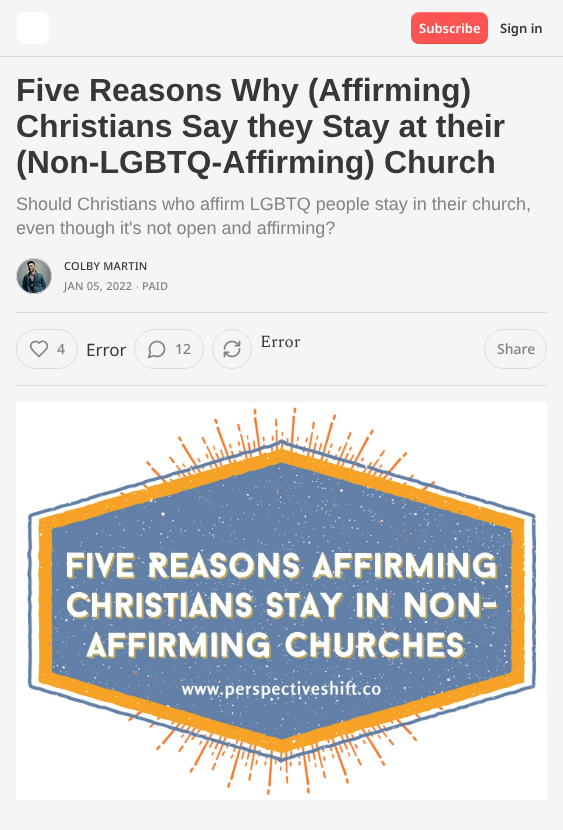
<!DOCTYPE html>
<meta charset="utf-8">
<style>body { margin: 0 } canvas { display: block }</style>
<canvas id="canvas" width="563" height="830"></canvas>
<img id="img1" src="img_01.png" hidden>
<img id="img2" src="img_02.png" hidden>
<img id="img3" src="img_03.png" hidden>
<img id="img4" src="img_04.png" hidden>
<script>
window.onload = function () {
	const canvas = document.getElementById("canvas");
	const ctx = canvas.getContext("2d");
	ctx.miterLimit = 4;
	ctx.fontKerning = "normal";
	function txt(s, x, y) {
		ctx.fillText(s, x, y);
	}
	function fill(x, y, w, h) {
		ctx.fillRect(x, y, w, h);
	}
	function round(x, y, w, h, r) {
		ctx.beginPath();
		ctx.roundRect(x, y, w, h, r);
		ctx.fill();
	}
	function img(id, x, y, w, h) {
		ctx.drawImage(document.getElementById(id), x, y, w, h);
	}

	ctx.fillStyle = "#F5F5F5";
	fill(0, 0, 563, 830);
	ctx.fillStyle = "#DDDDDD";
	fill(0, 56, 563, 1);
	ctx.fillStyle = "#FFFFFF";
	round(17, 12, 32, 32, 8);
	ctx.fillStyle = "#FD5353";
	round(411, 12, 77, 32, 8);
	ctx.fillStyle = "rgba(0, 0, 0, 0.1)";
	ctx.beginPath();
	ctx.moveTo(411, 35);
	ctx.bezierCurveTo(411, 46, 421, 44, 429, 44);
	ctx.lineTo(470, 44);
	ctx.bezierCurveTo(478, 44, 488, 46, 488, 35);
	ctx.bezierCurveTo(488, 39, 484, 43, 480, 43);
	ctx.lineTo(419, 43);
	ctx.bezierCurveTo(415, 43, 411, 39, 411, 35);
	ctx.closePath();
	ctx.fill();
	ctx.fillStyle = "rgba(255, 255, 255, 0.2)";
	ctx.beginPath();
	ctx.moveTo(419, 13);
	ctx.lineTo(480, 13);
	ctx.bezierCurveTo(484, 13, 488, 17, 488, 21);
	ctx.bezierCurveTo(488, 10, 478, 12, 470, 12);
	ctx.lineTo(429, 12);
	ctx.bezierCurveTo(421, 12, 411, 10, 411, 21);
	ctx.bezierCurveTo(411, 17, 415, 13, 419, 13);
	ctx.closePath();
	ctx.fill();
	ctx.beginPath();
	ctx.arc(34, 276, 17.5, 0, Math.PI * 2);
	ctx.strokeStyle = "#DDDDDD";
	ctx.stroke();
	img("img1", 16, 258, 36, 36);
	ctx.beginPath();
	ctx.arc(34, 276, 17.5, 0, Math.PI * 2);
	ctx.stroke();
	ctx.fillStyle = "#DDDDDD";
	fill(16, 312, 531, 1);
	fill(16, 385, 531, 1);
	ctx.beginPath();
	ctx.arc(232, 349, 19.5, 0, Math.PI * 2);
	ctx.stroke();
	img("img2", 223, 340, 18, 18);
	ctx.beginPath();
	ctx.roundRect(16.5, 329.5, 61, 39, 19.5);
	ctx.stroke();
	ctx.beginPath();
	ctx.moveTo(45, 350.5);
	ctx.bezierCurveTo(51, 344.5, 44, 338.5, 39, 343);
	ctx.bezierCurveTo(35.5, 339.5, 29.5, 342.5, 31, 347.5);
	ctx.bezierCurveTo(32, 350.5, 37, 354.5, 39, 356.5);
	ctx.closePath();
	ctx.strokeStyle = "#828383";
	ctx.lineWidth = 1.7;
	ctx.lineCap = "round";
	ctx.lineJoin = "round";
	ctx.stroke();
	ctx.beginPath();
	ctx.roundRect(134.5, 329.5, 69, 39, 19.5);
	ctx.strokeStyle = "#DDDDDD";
	ctx.lineWidth = 1;
	ctx.lineJoin = "miter";
	ctx.stroke();
	img("img3", 147, 340, 19, 19);
	ctx.beginPath();
	ctx.roundRect(484.5, 329.5, 62, 39, 19.5);
	ctx.stroke();
	img("img4", 16, 402, 531, 398);
	ctx.font = "600 13px Noto Sans";
	ctx.fillStyle = "#FFFFFF";
	txt("Subscribe", 419, 33);
	ctx.fillStyle = "#363737";
	txt("Sign in", 500, 33);
	ctx.font = "bold 32px Liberation Sans";
	txt("Five Reasons Why (Affirming)", 16, 101);
	txt("Christians Say they Stay at their", 16, 137);
	txt("(Non-LGBTQ-Affirming) Church", 16, 173);
	ctx.font = "18px Liberation Sans";
	ctx.fillStyle = "#828383";
	txt("Should Christians who affirm LGBTQ people stay in their church,", 16, 210);
	txt("even though it's not open and affirming?", 16, 234);
	ctx.letterSpacing = "0.25px";
	ctx.font = "500 11px Noto Sans";
	ctx.fillStyle = "#363737";
	txt("COLBY MARTIN", 64, 270);
	ctx.fillStyle = "#828383";
	txt("JAN 05, 2022", 64, 290);
	ctx.font = "11px Liberation Sans";
	txt("∙", 136, 290);
	ctx.font = "500 11px Noto Sans";
	txt("PAID", 142, 290);
	ctx.letterSpacing = "0px";
	ctx.font = "17px Spectral";
	ctx.fillStyle = "#363737";
	txt("Error", 260, 347);
	ctx.font = "500 14px Noto Sans";
	ctx.fillStyle = "#828383";
	txt("4", 57, 354);
	ctx.font = "17px Noto Sans";
	ctx.fillStyle = "#363737";
	txt("Error", 86, 356);
	ctx.font = "500 14px Noto Sans";
	ctx.fillStyle = "#828383";
	txt("12", 175, 354);
	txt("Share", 497, 354);
};
</script>
